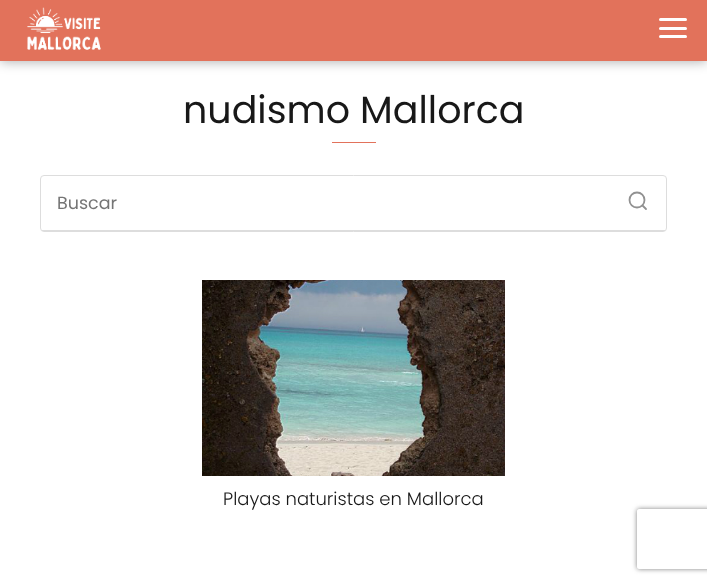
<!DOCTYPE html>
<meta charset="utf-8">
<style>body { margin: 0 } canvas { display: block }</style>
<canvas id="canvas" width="707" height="583"></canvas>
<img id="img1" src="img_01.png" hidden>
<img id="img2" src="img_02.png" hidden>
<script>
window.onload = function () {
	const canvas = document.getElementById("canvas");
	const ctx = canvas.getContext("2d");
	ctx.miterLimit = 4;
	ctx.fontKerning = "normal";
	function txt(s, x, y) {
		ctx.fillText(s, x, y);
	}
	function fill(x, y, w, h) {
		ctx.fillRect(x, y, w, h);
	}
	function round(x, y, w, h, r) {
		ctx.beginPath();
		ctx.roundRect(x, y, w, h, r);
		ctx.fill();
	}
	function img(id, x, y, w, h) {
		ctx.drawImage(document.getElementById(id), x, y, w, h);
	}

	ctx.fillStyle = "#FFFFFF";
	fill(0, 0, 707, 583);
	ctx.fillStyle = "rgba(0, 0, 0, 0.3)";
	ctx.filter = "blur(6px)";
	ctx.beginPath();
	ctx.rect(0, 1, 707, 61);
	ctx.fill();
	ctx.filter = "none";
	ctx.fillStyle = "#E2725B";
	fill(0, 0, 707, 61);
	img("img1", 27, 7, 74, 43);
	ctx.fillStyle = "#FFFFFF";
	round(659, 18, 28, 3, 1.5);
	round(659, 27, 28, 3, 1.5);
	round(659, 35, 28, 3, 1.5);
	ctx.fillStyle = "#E2725B";
	fill(332, 142, 44, 1);
	ctx.beginPath();
	ctx.roundRect(40.5, 175.5, 626, 56, 3.5);
	ctx.strokeStyle = "#DDDDDD";
	ctx.stroke();
	ctx.fillStyle = "#DDDDDD";
	fill(42, 230, 623, 1);
	ctx.beginPath();
	ctx.arc(637, 200, 7.5, 0, Math.PI * 2);
	ctx.strokeStyle = "#919191";
	ctx.lineWidth = 1.8;
	ctx.stroke();
	ctx.beginPath();
	ctx.moveTo(646, 209);
	ctx.lineTo(642.5, 205.5);
	ctx.lineCap = "round";
	ctx.lineJoin = "round";
	ctx.stroke();
	img("img2", 202, 280, 303, 196);
	ctx.save();
	ctx.beginPath();
	ctx.moveTo(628, 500);
	ctx.lineTo(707, 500);
	ctx.lineTo(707, 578);
	ctx.lineTo(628, 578);
	ctx.closePath();
	ctx.moveTo(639, 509);
	ctx.lineTo(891, 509);
	ctx.bezierCurveTo(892, 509, 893, 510, 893, 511);
	ctx.lineTo(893, 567);
	ctx.bezierCurveTo(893, 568, 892, 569, 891, 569);
	ctx.lineTo(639, 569);
	ctx.bezierCurveTo(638, 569, 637, 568, 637, 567);
	ctx.lineTo(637, 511);
	ctx.bezierCurveTo(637, 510, 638, 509, 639, 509);
	ctx.closePath();
	ctx.clip("evenodd");
	ctx.fillStyle = "#808080";
	ctx.filter = "blur(2.5px)";
	ctx.beginPath();
	ctx.roundRect(637, 509, 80, 60, 2);
	ctx.fill();
	ctx.filter = "none";
	ctx.restore();
	ctx.font = "38px Poppins";
	ctx.fillStyle = "#181818";
	txt("nudismo Mallorca", 183, 123);
	ctx.font = "17.5px Poppins";
	ctx.fillStyle = "#757575";
	txt("Buscar", 57, 209);
	ctx.font = "300 18px Poppins";
	ctx.fillStyle = "#181818";
	txt("Playas naturistas en Mallorca", 223, 505);
};
</script>
